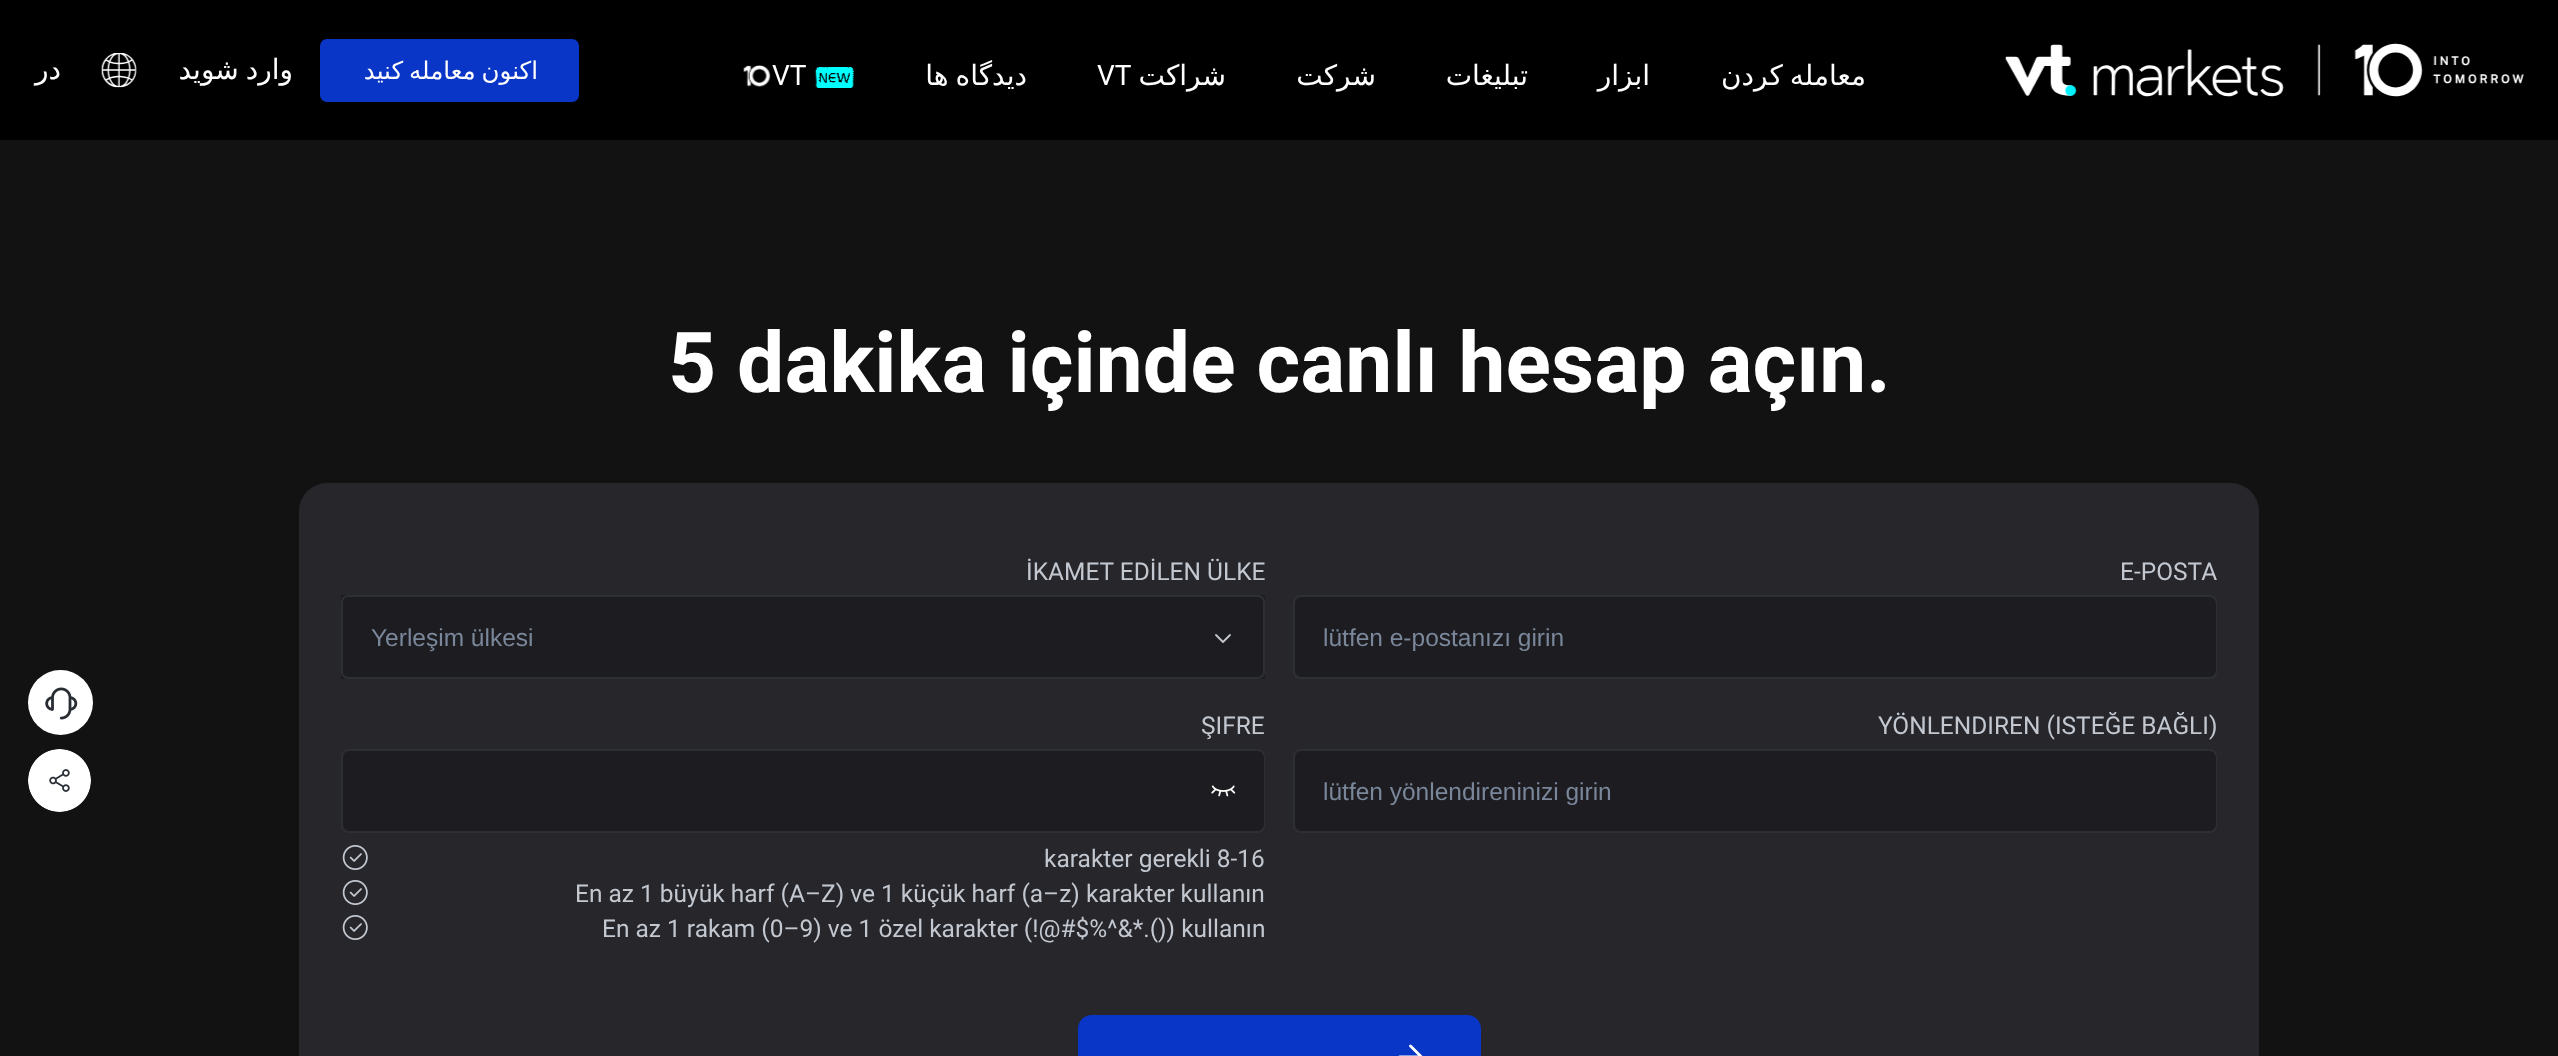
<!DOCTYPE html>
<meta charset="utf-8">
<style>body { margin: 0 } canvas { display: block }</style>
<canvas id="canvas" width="2558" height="1056"></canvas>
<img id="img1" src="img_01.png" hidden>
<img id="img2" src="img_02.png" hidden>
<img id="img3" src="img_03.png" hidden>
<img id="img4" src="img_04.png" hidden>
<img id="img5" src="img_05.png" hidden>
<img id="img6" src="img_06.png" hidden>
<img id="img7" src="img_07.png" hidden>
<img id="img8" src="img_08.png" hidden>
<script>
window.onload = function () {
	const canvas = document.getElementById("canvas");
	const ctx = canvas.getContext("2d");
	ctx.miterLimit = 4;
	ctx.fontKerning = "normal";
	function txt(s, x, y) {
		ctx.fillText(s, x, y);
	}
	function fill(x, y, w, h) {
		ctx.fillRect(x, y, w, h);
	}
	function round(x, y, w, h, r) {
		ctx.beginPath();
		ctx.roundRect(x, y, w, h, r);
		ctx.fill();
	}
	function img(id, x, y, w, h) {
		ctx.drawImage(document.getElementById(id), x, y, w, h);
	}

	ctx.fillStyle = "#121212";
	fill(0, 0, 2558, 1056);
	ctx.fillStyle = "#000000";
	fill(0, 0, 2558, 140);
	img("img1", 101, 53, 36, 35);
	ctx.fillStyle = "#0A36C7";
	round(320, 39, 259, 63, 7);
	img("img2", 743, 65, 28, 22);
	img("img3", 815, 67, 39, 21);
	img("img4", 2005, 43, 519, 54);
	ctx.fillStyle = "#FFFFFF";
	ctx.beginPath();
	ctx.arc(60.5, 702.5, 32.5, 0, Math.PI * 2);
	ctx.fill();
	img("img5", 45, 687, 33, 33);
	img("img6", 28, 749, 63, 63);
	ctx.fillStyle = "#26262B";
	round(299, 483, 1960, 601, 28);
	ctx.fillStyle = "#1D1D21";
	fill(341, 595, 924, 84);
	ctx.beginPath();
	ctx.roundRect(342, 596, 922, 82, 6);
	ctx.strokeStyle = "#2D3033";
	ctx.lineWidth = 2;
	ctx.stroke();
	ctx.beginPath();
	ctx.moveTo(1216, 635);
	ctx.lineTo(1223, 642);
	ctx.lineTo(1230, 635);
	ctx.strokeStyle = "#C2C7D0";
	ctx.lineWidth = 1.8;
	ctx.lineCap = "round";
	ctx.lineJoin = "round";
	ctx.stroke();
	ctx.beginPath();
	ctx.roundRect(1294, 596, 922, 82, 6);
	ctx.strokeStyle = "#2D3033";
	ctx.lineWidth = 2;
	ctx.lineJoin = "miter";
	ctx.stroke();
	round(1295, 597, 921, 80, 7);
	ctx.beginPath();
	ctx.roundRect(342, 750, 922, 82, 6);
	ctx.stroke();
	round(343, 751, 921, 80, 7);
	img("img7", 1211, 785, 25, 12);
	img("img8", 342, 845, 26, 25);
	img("img8", 342, 880, 26, 25);
	img("img8", 342, 915, 26, 25);
	ctx.beginPath();
	ctx.roundRect(1294, 750, 922, 82, 6);
	ctx.stroke();
	round(1295, 751, 921, 80, 7);
	ctx.fillStyle = "#0A36C7";
	round(1078, 1015, 403, 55, 14);
	ctx.beginPath();
	ctx.moveTo(1399.5, 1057);
	ctx.lineTo(1421.5, 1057);
	ctx.moveTo(1410.5, 1046);
	ctx.lineTo(1421.5, 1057);
	ctx.lineTo(1410.5, 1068);
	ctx.strokeStyle = "#FFFFFF";
	ctx.lineWidth = 2.8;
	ctx.lineJoin = "round";
	ctx.stroke();
	ctx.direction = "rtl";
	ctx.font = "28px DejaVu Sans";
	ctx.fillStyle = "#FFFFFF";
	txt("در", 61, 79);
	ctx.wordSpacing = "-2px";
	txt("وارد شوید", 293, 79);
	ctx.font = "24.5px DejaVu Sans";
	txt("اکنون معامله کنید", 538, 79);
	ctx.wordSpacing = "0px";
	ctx.direction = "ltr";
	ctx.font = "28px Roboto";
	txt("VT", 772, 85);
	ctx.wordSpacing = "-2px";
	ctx.direction = "rtl";
	ctx.font = "28px DejaVu Sans";
	txt("دیدگاه ها", 1027, 85);
	ctx.wordSpacing = "0px";
	ctx.direction = "ltr";
	ctx.font = "28px Roboto";
	txt("VT", 1097, 85);
	ctx.direction = "rtl";
	ctx.font = "28px DejaVu Sans";
	txt("شراکت", 1226, 85);
	txt("شرکت", 1376, 85);
	txt("تبلیغات", 1528, 85);
	txt("ابزار", 1650, 85);
	ctx.wordSpacing = "-2px";
	txt("معامله کردن", 1866, 85);
	ctx.wordSpacing = "0px";
	ctx.direction = "ltr";
	ctx.font = "bold 84px Roboto";
	txt("5 dakika içinde canlı hesap açın.", 668, 392);
	ctx.font = "24.5px Roboto";
	ctx.fillStyle = "#C2C7D0";
	txt("İKAMET EDİLEN ÜLKE", 1026, 580);
	ctx.font = "24.5px Liberation Sans";
	ctx.fillStyle = "#7A8699";
	txt("Yerleşim ülkesi", 371, 646);
	ctx.font = "24.5px Roboto";
	ctx.fillStyle = "#C2C7D0";
	txt("E-POSTA", 2120, 580);
	ctx.font = "24.5px Liberation Sans";
	ctx.fillStyle = "#7A8699";
	txt("lütfen e-postanızı girin", 1323, 646);
	ctx.font = "24.5px Roboto";
	ctx.fillStyle = "#C2C7D0";
	txt("ŞIFRE", 1201, 734);
	txt("karakter gerekli 8-16", 1044, 867);
	txt("En az 1 büyük harf (A–Z) ve 1 küçük harf (a–z) karakter kullanın", 575, 902);
	txt("En az 1 rakam (0–9) ve 1 özel karakter (!@#$%^&*.()) kullanın", 602, 937);
	txt("YÖNLENDIREN (ISTEĞE BAĞLI)", 1878, 734);
	ctx.font = "24.5px Liberation Sans";
	ctx.fillStyle = "#7A8699";
	txt("lütfen yönlendireninizi girin", 1323, 800);
};
</script>
